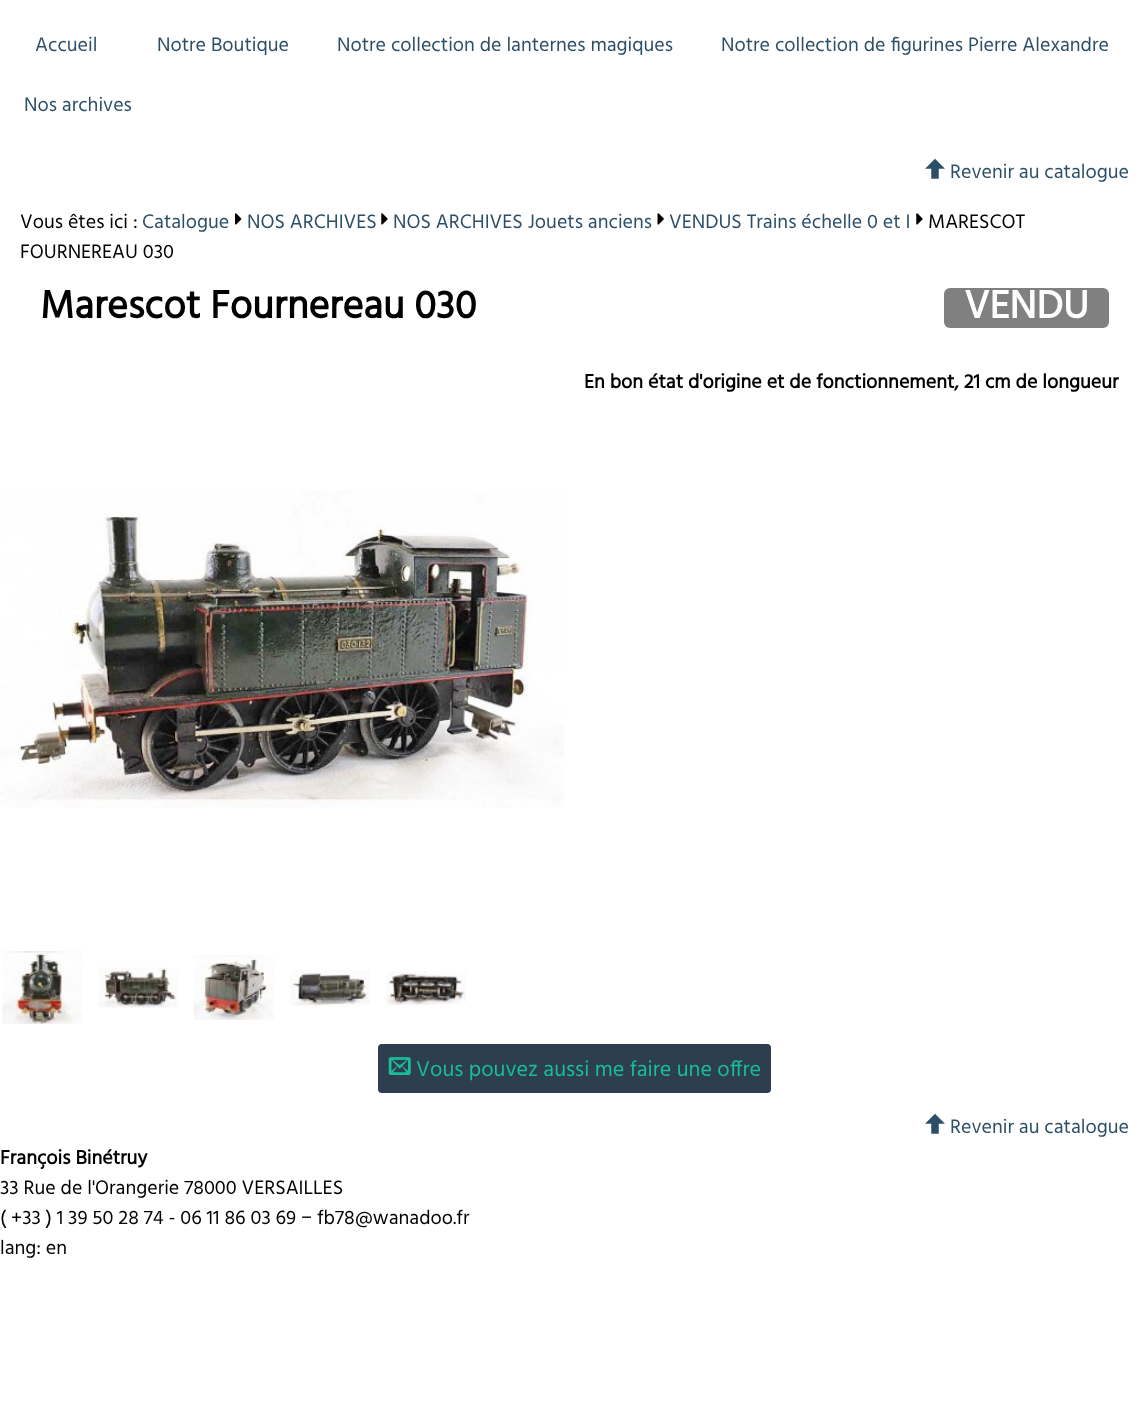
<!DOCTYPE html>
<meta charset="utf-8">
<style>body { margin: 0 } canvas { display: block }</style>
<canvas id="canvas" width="1148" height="1427"></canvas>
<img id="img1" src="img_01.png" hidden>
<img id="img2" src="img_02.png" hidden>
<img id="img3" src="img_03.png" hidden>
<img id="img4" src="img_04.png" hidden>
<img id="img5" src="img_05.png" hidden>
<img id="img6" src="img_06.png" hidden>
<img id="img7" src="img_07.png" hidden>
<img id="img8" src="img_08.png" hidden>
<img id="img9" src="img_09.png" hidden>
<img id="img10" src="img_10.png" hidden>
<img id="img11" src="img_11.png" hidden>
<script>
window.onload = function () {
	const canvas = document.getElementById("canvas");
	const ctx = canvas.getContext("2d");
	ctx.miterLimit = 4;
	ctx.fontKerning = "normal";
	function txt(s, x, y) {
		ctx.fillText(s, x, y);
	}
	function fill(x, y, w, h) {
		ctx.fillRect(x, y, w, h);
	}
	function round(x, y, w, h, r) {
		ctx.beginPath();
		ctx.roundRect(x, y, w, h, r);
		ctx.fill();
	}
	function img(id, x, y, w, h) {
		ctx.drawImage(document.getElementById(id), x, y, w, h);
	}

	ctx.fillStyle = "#FFFFFF";
	fill(0, 0, 1148, 1427);
	img("img1", 925, 158, 20, 21);
	img("img2", 235, 213, 7, 12);
	img("img3", 381, 213, 7, 12);
	img("img4", 657, 213, 7, 12);
	img("img3", 916, 213, 7, 12);
	ctx.fillStyle = "#808080";
	round(944, 288, 165, 40, 6);
	img("img5", 0, 490, 564, 318);
	img("img6", 2, 951, 81, 73);
	img("img7", 99, 967, 80, 41);
	img("img8", 193, 955, 81, 65);
	img("img9", 290, 970, 80, 36);
	img("img10", 386, 971, 80, 34);
	ctx.fillStyle = "#2C3E50";
	round(378, 1044, 393, 49, 4);
	img("img11", 388, 1057, 23, 18);
	img("img1", 925, 1113, 20, 21);
	ctx.font = "20px Hind";
	ctx.fillStyle = "#2C4F68";
	txt("Accueil", 35, 51);
	txt("Notre Boutique", 157, 51);
	txt("Notre collection de lanternes magiques", 337, 51);
	txt("Notre collection de figurines Pierre Alexandre", 721, 51);
	txt("Nos archives", 24, 111);
	txt("Revenir au catalogue", 950, 178);
	ctx.fillStyle = "#000000";
	txt("Vous êtes ici :", 20, 228);
	ctx.fillStyle = "#2C4F68";
	txt("Catalogue", 142, 228);
	txt("NOS ARCHIVES", 247, 228);
	txt("NOS ARCHIVES Jouets anciens", 393, 228);
	txt("VENDUS Trains échelle 0 et I", 669, 228);
	ctx.fillStyle = "#000000";
	txt("MARESCOT", 928, 228);
	txt("FOURNEREAU 030", 20, 258);
	ctx.font = "bold 40px Hind";
	txt("Marescot Fournereau 030", 40, 318);
	ctx.fillStyle = "#FFFFFF";
	txt("VENDU", 964, 318);
	ctx.font = "bold 20px Hind";
	ctx.fillStyle = "#000000";
	txt("En bon état d'origine et de fonctionnement, 21 cm de longueur", 584, 388);
	ctx.font = "22px Hind";
	ctx.fillStyle = "#19BC9C";
	txt("Vous pouvez aussi me faire une offre", 416, 1076);
	ctx.font = "20px Hind";
	ctx.fillStyle = "#2C4F68";
	txt("Revenir au catalogue", 950, 1133);
	ctx.font = "bold 20px Hind";
	ctx.fillStyle = "#000000";
	txt("François Binétruy", 0, 1164);
	ctx.font = "20px Hind";
	txt("33 Rue de l'Orangerie 78000 VERSAILLES", 0, 1194);
	txt("( +33 ) 1 39 50 28 74 - 06 11 86 03 69 − fb78@wanadoo.fr", 0, 1224);
	txt("lang: en", 0, 1254);
};
</script>
